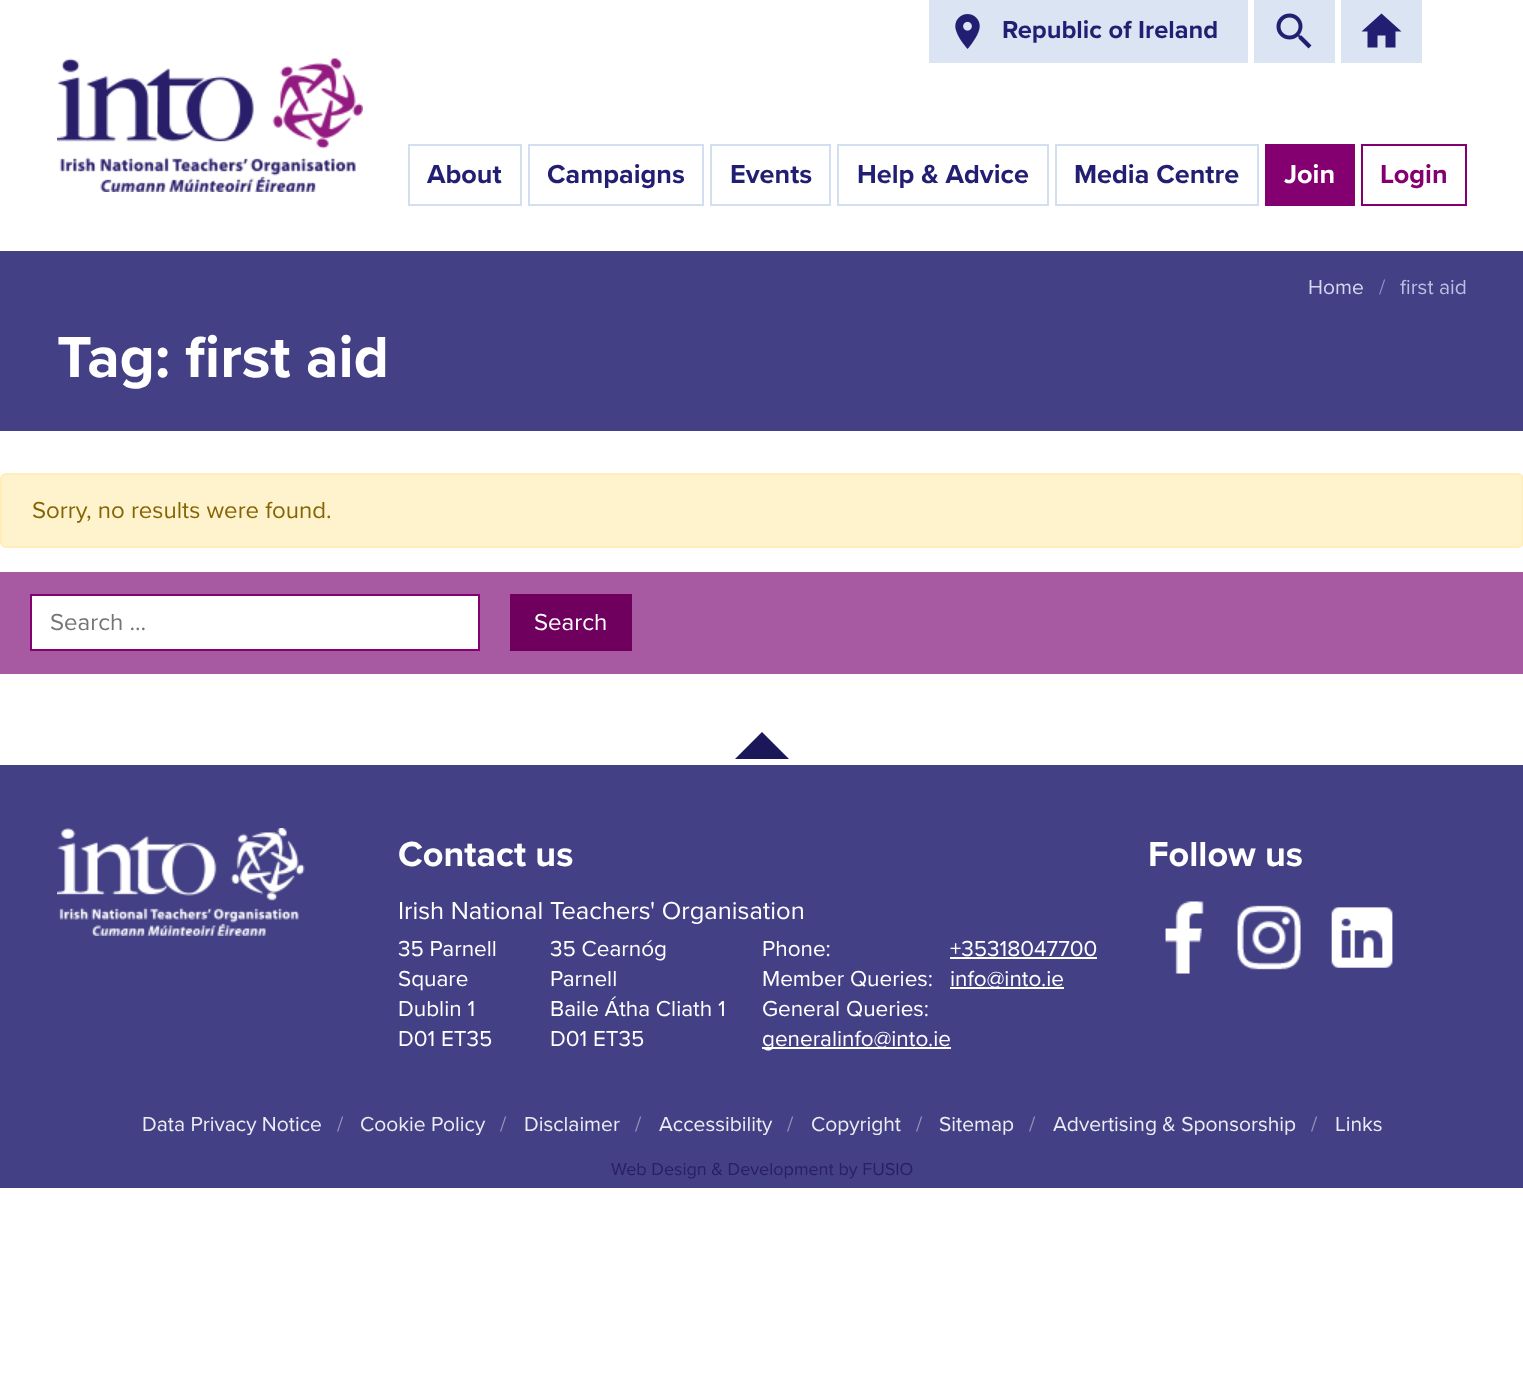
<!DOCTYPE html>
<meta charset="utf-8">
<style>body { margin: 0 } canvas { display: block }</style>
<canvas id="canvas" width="1523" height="1390"></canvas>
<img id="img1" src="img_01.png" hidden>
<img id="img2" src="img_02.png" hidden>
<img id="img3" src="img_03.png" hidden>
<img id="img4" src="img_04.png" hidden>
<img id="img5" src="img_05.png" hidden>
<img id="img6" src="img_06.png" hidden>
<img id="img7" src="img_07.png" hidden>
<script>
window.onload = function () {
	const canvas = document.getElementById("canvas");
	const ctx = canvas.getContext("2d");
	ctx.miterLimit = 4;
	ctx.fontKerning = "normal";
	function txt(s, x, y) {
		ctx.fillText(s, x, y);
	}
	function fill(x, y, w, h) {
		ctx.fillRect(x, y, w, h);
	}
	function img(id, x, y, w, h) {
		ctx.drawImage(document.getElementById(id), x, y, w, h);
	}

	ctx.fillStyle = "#FFFFFF";
	fill(0, 0, 1523, 1390);
	ctx.fillStyle = "#DBE4F3";
	fill(929, 0, 319, 63);
	img("img1", 955, 14, 25, 35);
	fill(1254, 0, 81, 63);
	img("img2", 1276, 13, 36, 36);
	fill(1341, 0, 81, 63);
	ctx.fillStyle = "#221F73";
	ctx.beginPath();
	ctx.moveTo(1377.5, 47.5);
	ctx.lineTo(1367.5, 47.5);
	ctx.lineTo(1367.5, 31.5);
	ctx.lineTo(1361.5, 31.5);
	ctx.lineTo(1381.5, 13.5);
	ctx.lineTo(1401.5, 31.5);
	ctx.lineTo(1395.5, 31.5);
	ctx.lineTo(1395.5, 47.5);
	ctx.lineTo(1385.5, 47.5);
	ctx.lineTo(1385.5, 35.5);
	ctx.lineTo(1377.5, 35.5);
	ctx.closePath();
	ctx.fill();
	img("img3", 57, 58, 306, 134);
	ctx.strokeStyle = "#D3DEF0";
	ctx.lineWidth = 2;
	ctx.strokeRect(409, 145, 112, 60);
	ctx.strokeRect(529, 145, 174, 60);
	ctx.strokeRect(711, 145, 119, 60);
	ctx.strokeRect(838, 145, 210, 60);
	ctx.strokeRect(1056, 145, 202, 60);
	ctx.fillStyle = "#840070";
	fill(1265, 144, 90, 62);
	ctx.strokeStyle = "#840070";
	ctx.strokeRect(1362, 145, 104, 60);
	ctx.fillStyle = "#444086";
	fill(0, 251, 1523, 180);
	ctx.fillStyle = "#FFF3CD";
	ctx.beginPath();
	ctx.roundRect(1, 474, 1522, 73, 5);
	ctx.fill();
	ctx.strokeStyle = "#FFEEBA";
	ctx.stroke();
	ctx.fillStyle = "#A759A1";
	fill(0, 572, 1523, 102);
	ctx.fillStyle = "#FFFFFF";
	ctx.beginPath();
	ctx.rect(31, 595, 448, 55);
	ctx.fill();
	ctx.strokeStyle = "#840070";
	ctx.stroke();
	ctx.fillStyle = "#6F005E";
	fill(510, 594, 122, 57);
	ctx.fillStyle = "#1A1858";
	ctx.beginPath();
	ctx.moveTo(789, 759);
	ctx.lineTo(735, 759);
	ctx.lineTo(762, 732);
	ctx.closePath();
	ctx.fill();
	ctx.fillStyle = "#444086";
	fill(0, 765, 1523, 423);
	img("img4", 57, 828, 248, 108);
	ctx.fillStyle = "#FFFFFF";
	fill(950, 957, 147, 2);
	fill(950, 987, 114, 2);
	fill(762, 1047, 189, 2);
	img("img5", 1165, 901, 39, 73);
	img("img6", 1237, 905, 64, 65);
	img("img7", 1331, 907, 62, 61);
	ctx.font = "bold 25.5px Proxima Nova";
	ctx.fillStyle = "#221F73";
	txt("Republic of Ireland", 1002, 38);
	ctx.font = "bold 27px Proxima Nova";
	txt("About", 427, 183);
	txt("Campaigns", 547, 183);
	txt("Events", 730, 183);
	txt("Help & Advice", 857, 183);
	txt("Media Centre", 1074, 183);
	ctx.fillStyle = "#FFFFFF";
	txt("Join", 1284, 183);
	ctx.fillStyle = "#840070";
	txt("Login", 1380, 183);
	ctx.font = "21px Proxima Nova";
	ctx.fillStyle = "#D5D7EF";
	txt("Home", 1308, 294);
	ctx.fillStyle = "#8790C8";
	txt("/", 1379, 294);
	ctx.fillStyle = "#BBBFE2";
	txt("first aid", 1400, 294);
	ctx.font = "bold 60px Proxima Nova";
	ctx.fillStyle = "#FFFFFF";
	txt("Tag: first aid", 57, 377);
	ctx.font = "24px Proxima Nova";
	ctx.fillStyle = "#856404";
	txt("Sorry, no results were found.", 32, 518);
	ctx.fillStyle = "#757575";
	txt("Search …", 50, 630);
	ctx.fillStyle = "#FFFFFF";
	txt("Search", 534, 630);
	ctx.font = "bold 36px Proxima Nova";
	txt("Contact us", 398, 866);
	ctx.font = "25.5px Proxima Nova";
	txt("Irish National Teachers' Organisation", 398, 919);
	ctx.font = "22.5px Proxima Nova";
	txt("35 Parnell", 398, 956);
	txt("Square", 398, 986);
	txt("Dublin 1", 398, 1016);
	txt("D01 ET35", 398, 1046);
	txt("35 Cearnóg", 550, 956);
	txt("Parnell", 550, 986);
	txt("Baile Átha Cliath 1", 550, 1016);
	txt("D01 ET35", 550, 1046);
	txt("Phone:", 762, 956);
	txt("+35318047700", 950, 956);
	txt("Member Queries:", 762, 986);
	txt("info@into.ie", 950, 986);
	txt("General Queries:", 762, 1016);
	txt("generalinfo@into.ie", 762, 1046);
	ctx.font = "bold 36px Proxima Nova";
	txt("Follow us", 1148, 866);
	ctx.font = "21px Proxima Nova";
	ctx.fillStyle = "#ECECF3";
	txt("Data Privacy Notice", 142, 1131);
	ctx.fillStyle = "#9594B8";
	txt("/", 337, 1131);
	ctx.fillStyle = "#ECECF3";
	txt("Cookie Policy", 360, 1131);
	ctx.fillStyle = "#9594B8";
	txt("/", 500, 1131);
	ctx.fillStyle = "#ECECF3";
	txt("Disclaimer", 524, 1131);
	ctx.fillStyle = "#9594B8";
	txt("/", 635, 1131);
	ctx.fillStyle = "#ECECF3";
	txt("Accessibility", 659, 1131);
	ctx.fillStyle = "#9594B8";
	txt("/", 787, 1131);
	ctx.fillStyle = "#ECECF3";
	txt("Copyright", 811, 1131);
	ctx.fillStyle = "#9594B8";
	txt("/", 916, 1131);
	ctx.fillStyle = "#ECECF3";
	txt("Sitemap", 939, 1131);
	ctx.fillStyle = "#9594B8";
	txt("/", 1029, 1131);
	ctx.fillStyle = "#ECECF3";
	txt("Advertising & Sponsorship", 1053, 1131);
	ctx.fillStyle = "#9594B8";
	txt("/", 1311, 1131);
	ctx.fillStyle = "#ECECF3";
	txt("Links", 1335, 1131);
	ctx.font = "18px Proxima Nova";
	ctx.fillStyle = "#281E69";
	txt("Web Design & Development by FUSIO", 611, 1175);
};
</script>
